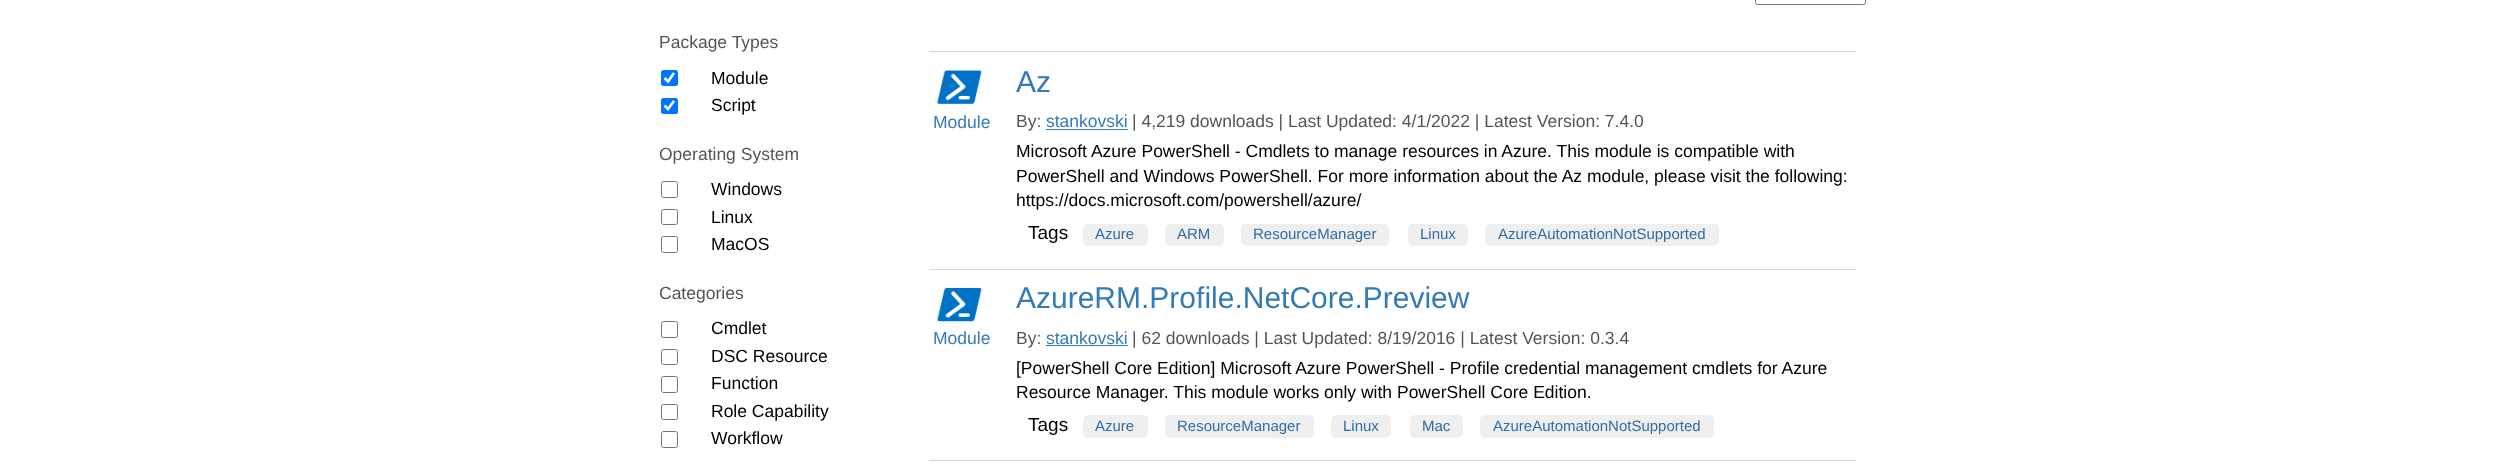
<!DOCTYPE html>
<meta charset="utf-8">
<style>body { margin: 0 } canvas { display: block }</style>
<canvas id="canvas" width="2500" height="475"></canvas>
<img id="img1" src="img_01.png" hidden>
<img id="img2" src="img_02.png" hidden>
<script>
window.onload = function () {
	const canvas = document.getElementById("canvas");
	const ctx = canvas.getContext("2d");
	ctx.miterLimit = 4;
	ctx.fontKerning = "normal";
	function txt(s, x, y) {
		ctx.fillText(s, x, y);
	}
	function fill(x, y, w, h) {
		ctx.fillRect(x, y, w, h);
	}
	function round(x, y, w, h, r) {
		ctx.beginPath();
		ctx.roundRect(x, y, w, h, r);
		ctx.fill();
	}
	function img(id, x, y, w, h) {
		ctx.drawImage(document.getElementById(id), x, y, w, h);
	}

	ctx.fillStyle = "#FFFFFF";
	fill(0, 0, 2500, 475);
	ctx.fillStyle = "#0075FF";
	round(661, 70, 17, 16, 2.5);
	ctx.beginPath();
	ctx.moveTo(664.5, 78);
	ctx.lineTo(668, 81.5);
	ctx.lineTo(674, 73);
	ctx.strokeStyle = "#FFFFFF";
	ctx.lineWidth = 2.6;
	ctx.stroke();
	round(661, 98, 17, 16, 2.5);
	ctx.beginPath();
	ctx.moveTo(664.5, 105.5);
	ctx.lineTo(668, 109);
	ctx.lineTo(674, 101);
	ctx.stroke();
	ctx.beginPath();
	ctx.roundRect(661.5, 181.5, 16, 16, 2);
	ctx.strokeStyle = "#767676";
	ctx.lineWidth = 1;
	ctx.stroke();
	ctx.beginPath();
	ctx.roundRect(661.5, 209.5, 16, 15, 2);
	ctx.stroke();
	ctx.beginPath();
	ctx.roundRect(661.5, 236.5, 16, 16, 2);
	ctx.stroke();
	ctx.beginPath();
	ctx.roundRect(661.5, 321.5, 16, 16, 2);
	ctx.stroke();
	ctx.beginPath();
	ctx.roundRect(661.5, 349.5, 16, 15, 2);
	ctx.stroke();
	ctx.beginPath();
	ctx.roundRect(661.5, 376.5, 16, 16, 2);
	ctx.stroke();
	ctx.beginPath();
	ctx.roundRect(661.5, 404.5, 16, 15, 2);
	ctx.stroke();
	ctx.beginPath();
	ctx.roundRect(661.5, 431.5, 16, 16, 2);
	ctx.stroke();
	ctx.beginPath();
	ctx.roundRect(1755.5, -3.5, 110, 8, 2);
	ctx.stroke();
	ctx.fillStyle = "#D8D8D8";
	fill(929, 51, 927, 1);
	img("img1", 937, 70, 45, 34);
	ctx.fillStyle = "#337AB7";
	fill(1046, 129, 82, 1);
	ctx.fillStyle = "#EFEFEF";
	round(1083, 224, 65, 22, 5);
	round(1165, 224, 59, 22, 5);
	round(1241, 224, 148, 22, 5);
	round(1408, 224, 60, 22, 5);
	round(1485, 224, 234, 22, 5);
	ctx.fillStyle = "#D8D8D8";
	fill(929, 269, 927, 1);
	img("img2", 937, 288, 45, 34);
	ctx.fillStyle = "#337AB7";
	fill(1046, 345, 82, 1);
	ctx.fillStyle = "#EFEFEF";
	round(1083, 415, 65, 23, 5);
	round(1165, 415, 149, 23, 5);
	round(1331, 415, 60, 23, 5);
	round(1410, 415, 53, 23, 5);
	round(1480, 415, 234, 23, 5);
	ctx.fillStyle = "#D8D8D8";
	fill(929, 460, 927, 1);
	ctx.font = "17.5px Liberation Sans";
	ctx.fillStyle = "#555555";
	txt("Package Types", 659, 48);
	ctx.fillStyle = "#000000";
	txt("Module", 711, 84);
	txt("Script", 711, 111);
	ctx.fillStyle = "#555555";
	txt("Operating System", 659, 160);
	ctx.fillStyle = "#000000";
	txt("Windows", 711, 195);
	txt("Linux", 711, 223);
	txt("MacOS", 711, 250);
	ctx.fillStyle = "#555555";
	txt("Categories", 659, 299);
	ctx.fillStyle = "#000000";
	txt("Cmdlet", 711, 334);
	txt("DSC Resource", 711, 362);
	txt("Function", 711, 389);
	txt("Role Capability", 711, 417);
	txt("Workflow", 711, 444);
	ctx.fillStyle = "#337AB7";
	txt("Module", 933, 128);
	ctx.font = "30px Liberation Sans";
	txt("Az", 1016, 92);
	ctx.font = "17.5px Liberation Sans";
	ctx.fillStyle = "#555555";
	txt("By:", 1016, 127);
	ctx.fillStyle = "#337AB7";
	txt("stankovski", 1046, 127);
	ctx.fillStyle = "#555555";
	txt("| 4,219 downloads | Last Updated: 4/1/2022 | Latest Version: 7.4.0", 1132, 127);
	ctx.fillStyle = "#000000";
	txt("Microsoft Azure PowerShell - Cmdlets to manage resources in Azure. This module is compatible with", 1016, 157);
	txt("PowerShell and Windows PowerShell. For more information about the Az module, please visit the following:", 1016, 182);
	txt("https://docs.microsoft.com/powershell/azure/", 1016, 206);
	ctx.font = "19px Liberation Sans";
	txt("Tags", 1028, 239);
	ctx.font = "15px Liberation Sans";
	ctx.fillStyle = "#2E6DA4";
	txt("Azure", 1095, 239);
	txt("ARM", 1177, 239);
	txt("ResourceManager", 1253, 239);
	txt("Linux", 1420, 239);
	txt("AzureAutomationNotSupported", 1498, 239);
	ctx.font = "17.5px Liberation Sans";
	ctx.fillStyle = "#337AB7";
	txt("Module", 933, 344);
	ctx.font = "30px Liberation Sans";
	txt("AzureRM.Profile.NetCore.Preview", 1016, 308);
	ctx.font = "17.5px Liberation Sans";
	ctx.fillStyle = "#555555";
	txt("By:", 1016, 344);
	ctx.fillStyle = "#337AB7";
	txt("stankovski", 1046, 344);
	ctx.fillStyle = "#555555";
	txt("| 62 downloads | Last Updated: 8/19/2016 | Latest Version: 0.3.4", 1132, 344);
	ctx.fillStyle = "#000000";
	txt("[PowerShell Core Edition] Microsoft Azure PowerShell - Profile credential management cmdlets for Azure", 1016, 374);
	txt("Resource Manager. This module works only with PowerShell Core Edition.", 1016, 398);
	ctx.font = "19px Liberation Sans";
	txt("Tags", 1028, 431);
	ctx.font = "15px Liberation Sans";
	ctx.fillStyle = "#2E6DA4";
	txt("Azure", 1095, 431);
	txt("ResourceManager", 1177, 431);
	txt("Linux", 1343, 431);
	txt("Mac", 1422, 431);
	txt("AzureAutomationNotSupported", 1493, 431);
};
</script>
